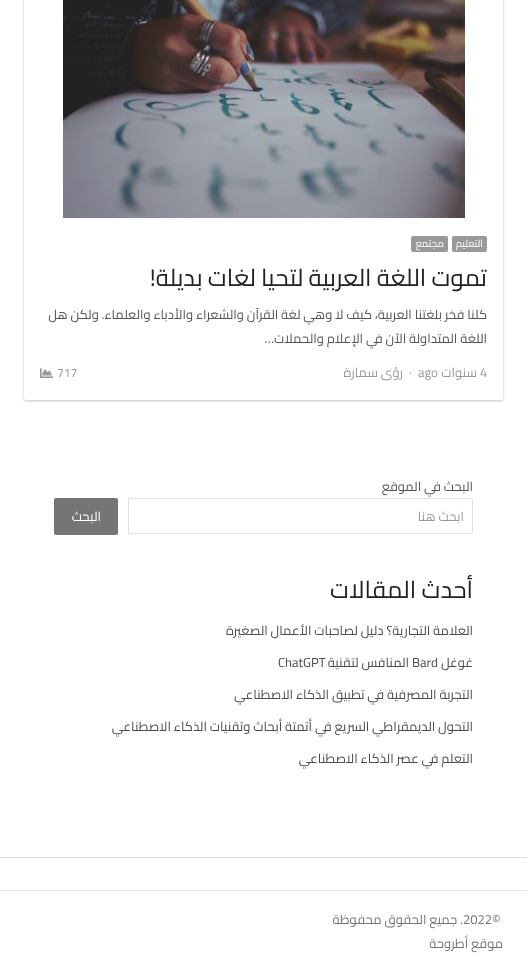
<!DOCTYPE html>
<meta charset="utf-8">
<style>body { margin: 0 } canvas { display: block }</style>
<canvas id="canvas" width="527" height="971"></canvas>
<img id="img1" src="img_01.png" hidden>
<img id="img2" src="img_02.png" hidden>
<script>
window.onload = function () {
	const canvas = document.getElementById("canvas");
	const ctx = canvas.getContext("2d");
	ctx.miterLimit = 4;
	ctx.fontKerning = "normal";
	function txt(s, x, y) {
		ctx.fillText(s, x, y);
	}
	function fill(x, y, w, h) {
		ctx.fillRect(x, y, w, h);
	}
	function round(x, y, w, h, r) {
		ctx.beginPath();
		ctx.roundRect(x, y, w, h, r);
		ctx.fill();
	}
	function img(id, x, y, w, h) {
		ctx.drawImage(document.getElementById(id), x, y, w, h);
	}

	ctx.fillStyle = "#FFFFFF";
	fill(0, 0, 527, 971);
	ctx.save();
	ctx.beginPath();
	ctx.moveTo(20, 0);
	ctx.lineTo(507, 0);
	ctx.lineTo(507, 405);
	ctx.lineTo(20, 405);
	ctx.closePath();
	ctx.moveTo(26, -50);
	ctx.lineTo(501, -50);
	ctx.bezierCurveTo(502, -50, 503, -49, 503, -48);
	ctx.lineTo(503, 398);
	ctx.bezierCurveTo(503, 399, 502, 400, 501, 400);
	ctx.lineTo(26, 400);
	ctx.bezierCurveTo(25, 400, 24, 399, 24, 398);
	ctx.lineTo(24, -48);
	ctx.bezierCurveTo(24, -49, 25, -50, 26, -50);
	ctx.closePath();
	ctx.clip("evenodd");
	ctx.fillStyle = "rgba(0, 0, 0, 0.12)";
	ctx.filter = "blur(1px)";
	ctx.beginPath();
	ctx.roundRect(24, -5, 479, 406, 2);
	ctx.fill();
	ctx.filter = "none";
	ctx.restore();
	ctx.save();
	ctx.beginPath();
	ctx.moveTo(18, 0);
	ctx.lineTo(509, 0);
	ctx.lineTo(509, 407);
	ctx.lineTo(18, 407);
	ctx.closePath();
	ctx.moveTo(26, -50);
	ctx.lineTo(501, -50);
	ctx.bezierCurveTo(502, -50, 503, -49, 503, -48);
	ctx.lineTo(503, 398);
	ctx.bezierCurveTo(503, 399, 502, 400, 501, 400);
	ctx.lineTo(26, 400);
	ctx.bezierCurveTo(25, 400, 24, 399, 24, 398);
	ctx.lineTo(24, -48);
	ctx.bezierCurveTo(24, -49, 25, -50, 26, -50);
	ctx.closePath();
	ctx.clip("evenodd");
	ctx.fillStyle = "rgba(0, 0, 0, 0.12)";
	ctx.filter = "blur(1.5px)";
	ctx.beginPath();
	ctx.roundRect(24, -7, 479, 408, 2);
	ctx.fill();
	ctx.filter = "none";
	ctx.restore();
	img("img1", 63, 0, 402, 218);
	ctx.fillStyle = "#999999";
	round(452, 236, 35, 16, 2);
	round(411, 236, 37, 16, 2);
	img("img2", 40, 368, 13, 10);
	ctx.beginPath();
	ctx.roundRect(128.5, 498.5, 344, 35, 1.5);
	ctx.strokeStyle = "#E0E0E0";
	ctx.stroke();
	ctx.fillStyle = "#757575";
	round(54, 498, 64, 37, 2);
	ctx.fillStyle = "#E0E0E0";
	fill(0, 857, 527, 1);
	fill(0, 890, 527, 1);
	ctx.direction = "rtl";
	ctx.font = "10px Cairo";
	ctx.fillStyle = "#FFFFFF";
	txt("التعليم", 483, 247);
	txt("مجتمع", 444, 247);
	ctx.font = "24px Cairo";
	ctx.fillStyle = "#222222";
	txt("تموت اللغة العربية لتحيا لغات بديلة!", 487, 286);
	ctx.font = "13px Cairo";
	ctx.fillStyle = "#555555";
	txt("كلنا فخر بلغتنا العربية، كيف لا وهي لغة القرآن والشعراء والأدباء والعلماء. ولكن هل", 487, 319);
	txt("اللغة المتداولة الآن في الإعلام والحملات…", 487, 343);
	ctx.direction = "ltr";
	ctx.fillStyle = "#999999";
	txt("4", 480, 377);
	ctx.direction = "rtl";
	txt("سنوات", 477, 377);
	ctx.direction = "ltr";
	txt("ago", 418, 377);
	txt("·", 409, 377);
	ctx.direction = "rtl";
	txt("رؤى سمارة", 403, 377);
	ctx.direction = "ltr";
	ctx.font = "12px Cairo";
	txt("717", 57, 377);
	ctx.direction = "rtl";
	ctx.font = "13px Cairo";
	ctx.fillStyle = "#555555";
	txt("البحث في الموقع", 473, 491);
	ctx.fillStyle = "#999999";
	txt("ابحث هنا", 464, 521);
	ctx.fillStyle = "#FFFFFF";
	txt("البحث", 101, 521);
	ctx.font = "24px Cairo";
	ctx.fillStyle = "#222222";
	txt("أحدث المقالات", 473, 598);
	ctx.font = "13px Cairo";
	ctx.fillStyle = "#4D4D4D";
	txt("العلامة التجارية؟ دليل لصاحبات الأعمال الصغيرة", 473, 635);
	txt("غوغل", 473, 667);
	ctx.direction = "ltr";
	txt("Bard", 412, 667);
	ctx.direction = "rtl";
	txt("المنافس لتقنية", 409, 667);
	ctx.direction = "ltr";
	txt("ChatGPT", 278, 667);
	ctx.direction = "rtl";
	txt("التجربة المصرفية في تطبيق الذكاء الاصطناعي", 473, 699);
	txt("التحول الديمقراطي السريع في أتمتة أبحاث وتقنيات الذكاء الاصطناعي", 473, 731);
	txt("التعلم في عصر الذكاء الاصطناعي", 473, 763);
	ctx.direction = "ltr";
	ctx.fillStyle = "#757575";
	txt("2022©", 463, 924);
	ctx.direction = "rtl";
	txt(". جميع الحقوق محفوظة", 463, 924);
	txt("موقع أطروحة", 503, 948);
};
</script>
